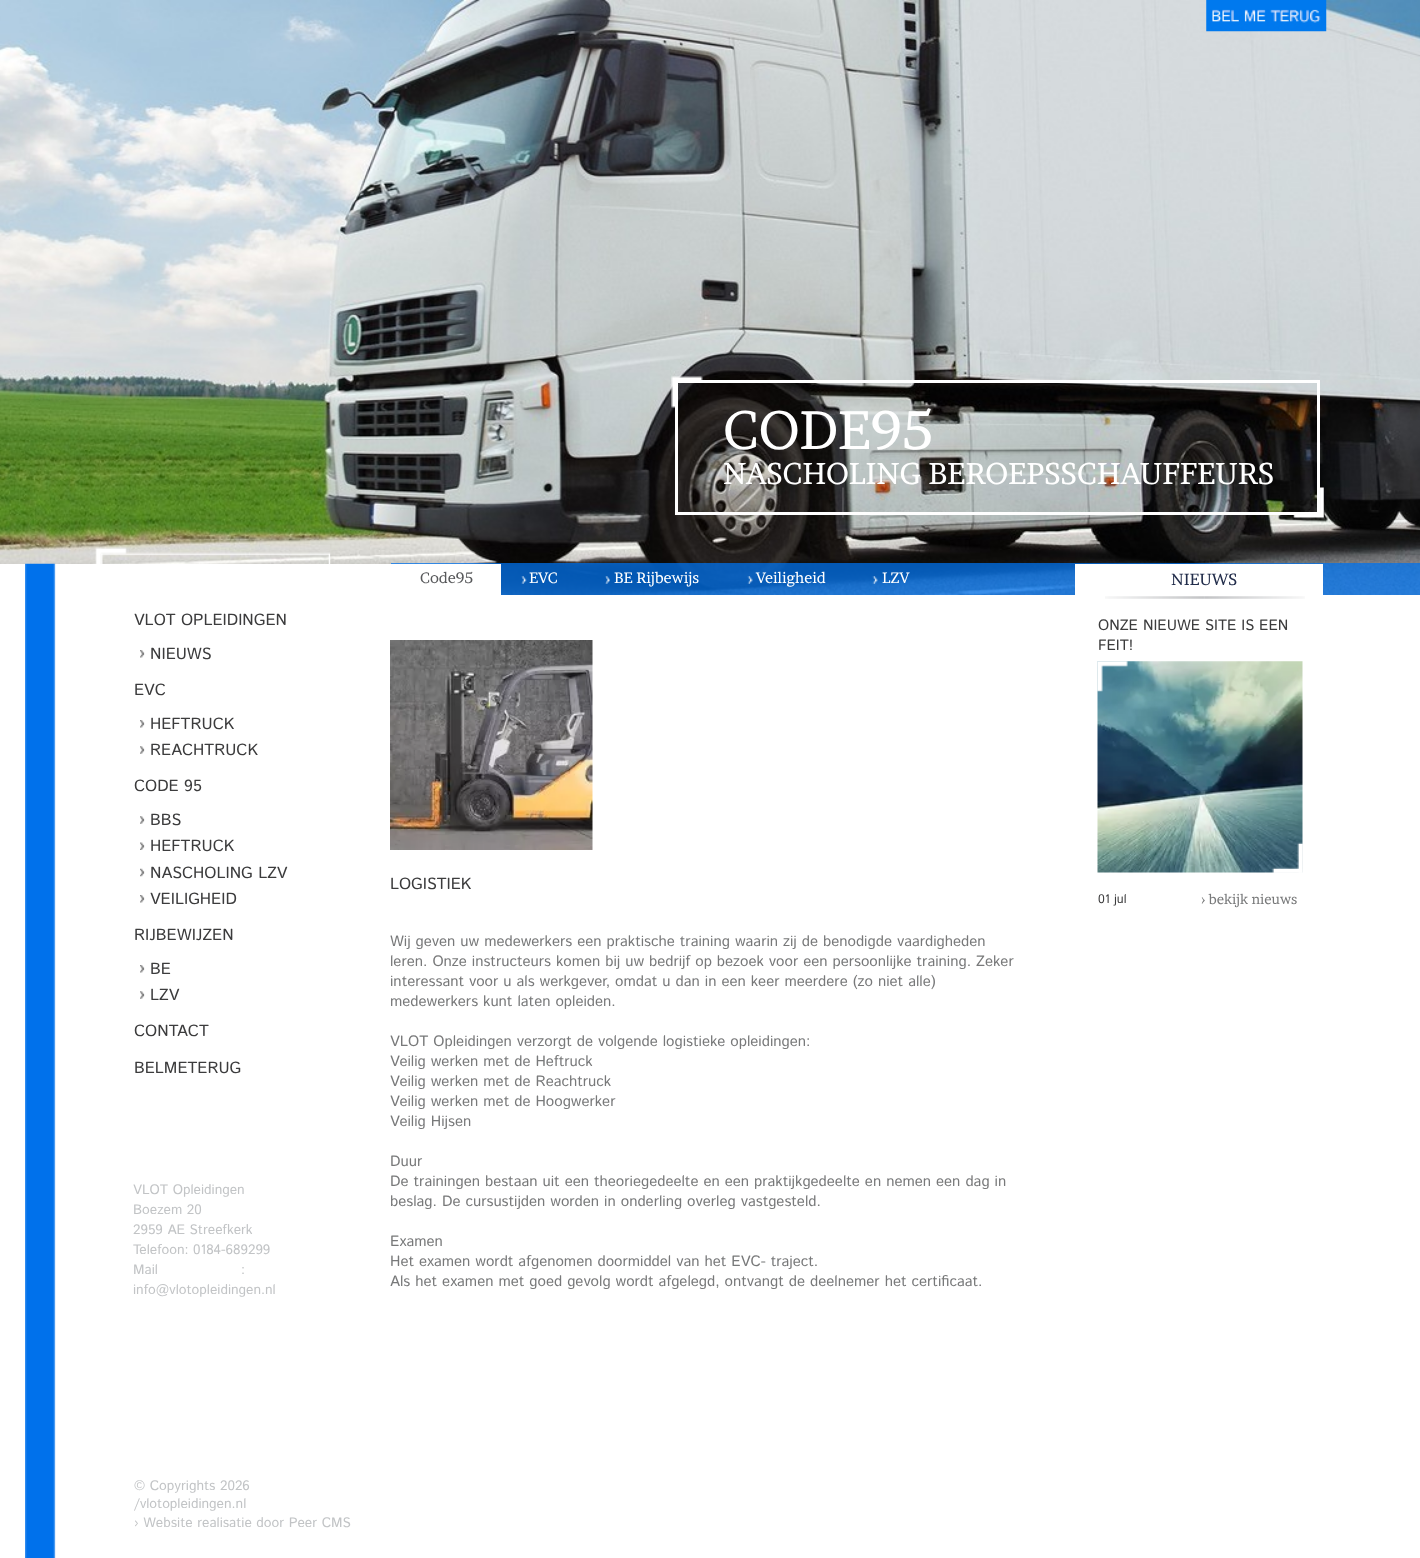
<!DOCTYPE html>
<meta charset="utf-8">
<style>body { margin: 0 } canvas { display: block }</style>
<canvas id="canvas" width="1420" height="1558"></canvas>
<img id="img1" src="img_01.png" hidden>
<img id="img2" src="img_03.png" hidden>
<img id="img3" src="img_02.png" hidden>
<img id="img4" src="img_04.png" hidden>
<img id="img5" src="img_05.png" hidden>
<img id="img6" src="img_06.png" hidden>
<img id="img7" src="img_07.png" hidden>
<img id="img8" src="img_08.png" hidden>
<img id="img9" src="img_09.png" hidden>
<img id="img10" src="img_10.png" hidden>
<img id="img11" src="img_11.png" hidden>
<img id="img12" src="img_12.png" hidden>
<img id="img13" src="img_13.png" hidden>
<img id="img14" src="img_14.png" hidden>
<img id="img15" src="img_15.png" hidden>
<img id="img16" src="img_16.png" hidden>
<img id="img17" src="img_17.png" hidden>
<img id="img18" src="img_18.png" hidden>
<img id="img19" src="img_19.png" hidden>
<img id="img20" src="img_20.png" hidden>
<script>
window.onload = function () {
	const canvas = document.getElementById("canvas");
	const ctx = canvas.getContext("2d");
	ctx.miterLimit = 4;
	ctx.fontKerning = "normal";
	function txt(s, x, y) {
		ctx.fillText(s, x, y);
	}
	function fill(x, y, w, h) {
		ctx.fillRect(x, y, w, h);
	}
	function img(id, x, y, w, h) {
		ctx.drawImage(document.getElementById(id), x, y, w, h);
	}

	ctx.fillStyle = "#FFFFFF";
	fill(0, 0, 1420, 1558);
	img("img1", 25, 595, 31, 963);
	img("img2", 0, 0, 1420, 595);
	img("img3", 1206, 0, 121, 32);
	img("img4", 671, 376, 32, 32);
	img("img5", 842, 487, 482, 32);
	ctx.strokeStyle = "#FFFFFF";
	ctx.lineWidth = 3;
	ctx.strokeRect(676.5, 381.5, 642, 132);
	fill(0, 564, 391, 31);
	img("img6", 25, 563, 31, 32);
	img("img7", 95, 547, 236, 17);
	img("img8", 140, 650, 5, 8);
	img("img8", 140, 720, 5, 8);
	img("img9", 140, 746, 5, 8);
	img("img9", 140, 816, 5, 8);
	img("img10", 140, 842, 5, 8);
	img("img11", 140, 868, 5, 9);
	img("img8", 140, 895, 5, 8);
	img("img8", 140, 965, 5, 8);
	img("img9", 140, 991, 5, 8);
	ctx.fillStyle = "rgba(0, 113, 236, 0.75)";
	fill(391, 563, 1029, 32);
	ctx.fillStyle = "#FFFFFF";
	fill(391, 564, 110, 31);
	img("img12", 521, 576, 6, 8);
	img("img13", 605, 576, 5, 8);
	img("img14", 747, 576, 6, 8);
	img("img15", 872, 576, 6, 8);
	img("img16", 390, 640, 203, 210);
	fill(1075, 564, 248, 31);
	img("img17", 1105, 596, 200, 3);
	img("img18", 1097, 661, 206, 212);
	img("img19", 1097, 661, 31, 31);
	img("img20", 1272, 842, 31, 31);
	ctx.font = "54px Brawler";
	txt("CODE95", 723, 449);
	ctx.font = "30px Brawler";
	txt("NASCHOLING BEROEPSSCHAUFFEURS", 723, 484);
	ctx.font = "16.25px Istok Web";
	ctx.fillStyle = "#3C3C3D";
	txt("VLOT OPLEIDINGEN", 134, 625);
	txt("NIEUWS", 150, 659);
	txt("EVC", 134, 695);
	txt("HEFTRUCK", 150, 729);
	txt("REACHTRUCK", 150, 755);
	txt("CODE 95", 134, 791);
	txt("BBS", 150, 825);
	txt("HEFTRUCK", 150, 851);
	txt("NASCHOLING LZV", 150, 878);
	txt("VEILIGHEID", 150, 904);
	txt("RIJBEWIJZEN", 134, 940);
	txt("BE", 150, 974);
	txt("LZV", 150, 1000);
	txt("CONTACT", 134, 1036);
	txt("BELMETERUG", 134, 1073);
	ctx.font = "13.75px Istok Web";
	ctx.fillStyle = "#C2C4C6";
	txt("VLOT Opleidingen", 133, 1194);
	txt("Boezem 20", 133, 1214);
	txt("2959 AE Streefkerk", 133, 1234);
	txt("Telefoon: 0184-689299", 133, 1254);
	txt("Mail", 133, 1274);
	txt(":", 241, 1274);
	txt("info@vlotopleidingen.nl", 133, 1294);
	ctx.font = "15px Brawler";
	ctx.fillStyle = "#58595B";
	txt("Code95", 420, 583);
	ctx.fillStyle = "#FFFFFF";
	txt("EVC", 529, 583);
	txt("BE Rijbewijs", 614, 583);
	txt("Veiligheid", 756, 583);
	txt("LZV", 882, 583);
	ctx.font = "16.25px Istok Web";
	ctx.fillStyle = "#3C3C3D";
	txt("LOGISTIEK", 390, 889);
	ctx.font = "15px Istok Web";
	ctx.fillStyle = "#78797A";
	txt("Wij geven uw medewerkers een praktische training waarin zij de benodigde vaardigheden", 390, 946);
	txt("leren. Onze instructeurs komen bij uw bedrijf op bezoek voor een persoonlijke training. Zeker", 390, 966);
	txt("interessant voor u als werkgever, omdat u dan in een keer meerdere (zo niet alle)", 390, 986);
	txt("medewerkers kunt laten opleiden.", 390, 1006);
	txt("VLOT Opleidingen verzorgt de volgende logistieke opleidingen:", 390, 1046);
	txt("Veilig werken met de Heftruck", 390, 1066);
	txt("Veilig werken met de Reachtruck", 390, 1086);
	txt("Veilig werken met de Hoogwerker", 390, 1106);
	txt("Veilig Hijsen", 390, 1126);
	txt("Duur", 390, 1166);
	txt("De trainingen bestaan uit een theoriegedeelte en een praktijkgedeelte en nemen een dag in", 390, 1186);
	txt("beslag. De cursustijden worden in onderling overleg vastgesteld.", 390, 1206);
	txt("Examen", 390, 1246);
	txt("Het examen wordt afgenomen doormiddel van het EVC- traject.", 390, 1266);
	txt("Als het examen met goed gevolg wordt afgelegd, ontvangt de deelnemer het certificaat.", 390, 1286);
	ctx.font = "16.25px Brawler";
	ctx.fillStyle = "#212C4A";
	txt("NIEUWS", 1171, 585);
	ctx.font = "15px Istok Web";
	ctx.fillStyle = "#3C3C3D";
	txt("ONZE NIEUWE SITE IS EEN", 1098, 630);
	txt("FEIT!", 1098, 650);
	ctx.font = "12.5px Istok Web";
	txt("01 jul", 1098, 903);
	ctx.font = "13.75px Brawler";
	ctx.fillStyle = "#78797A";
	txt("› bekijk nieuws", 1201, 904);
	ctx.font = "13.75px Istok Web";
	ctx.fillStyle = "#C2C4C6";
	txt("© Copyrights 2026", 134, 1490);
	txt("/vlotopleidingen.nl", 134, 1508);
	txt("› Website realisatie door Peer CMS", 134, 1527);
};
</script>
